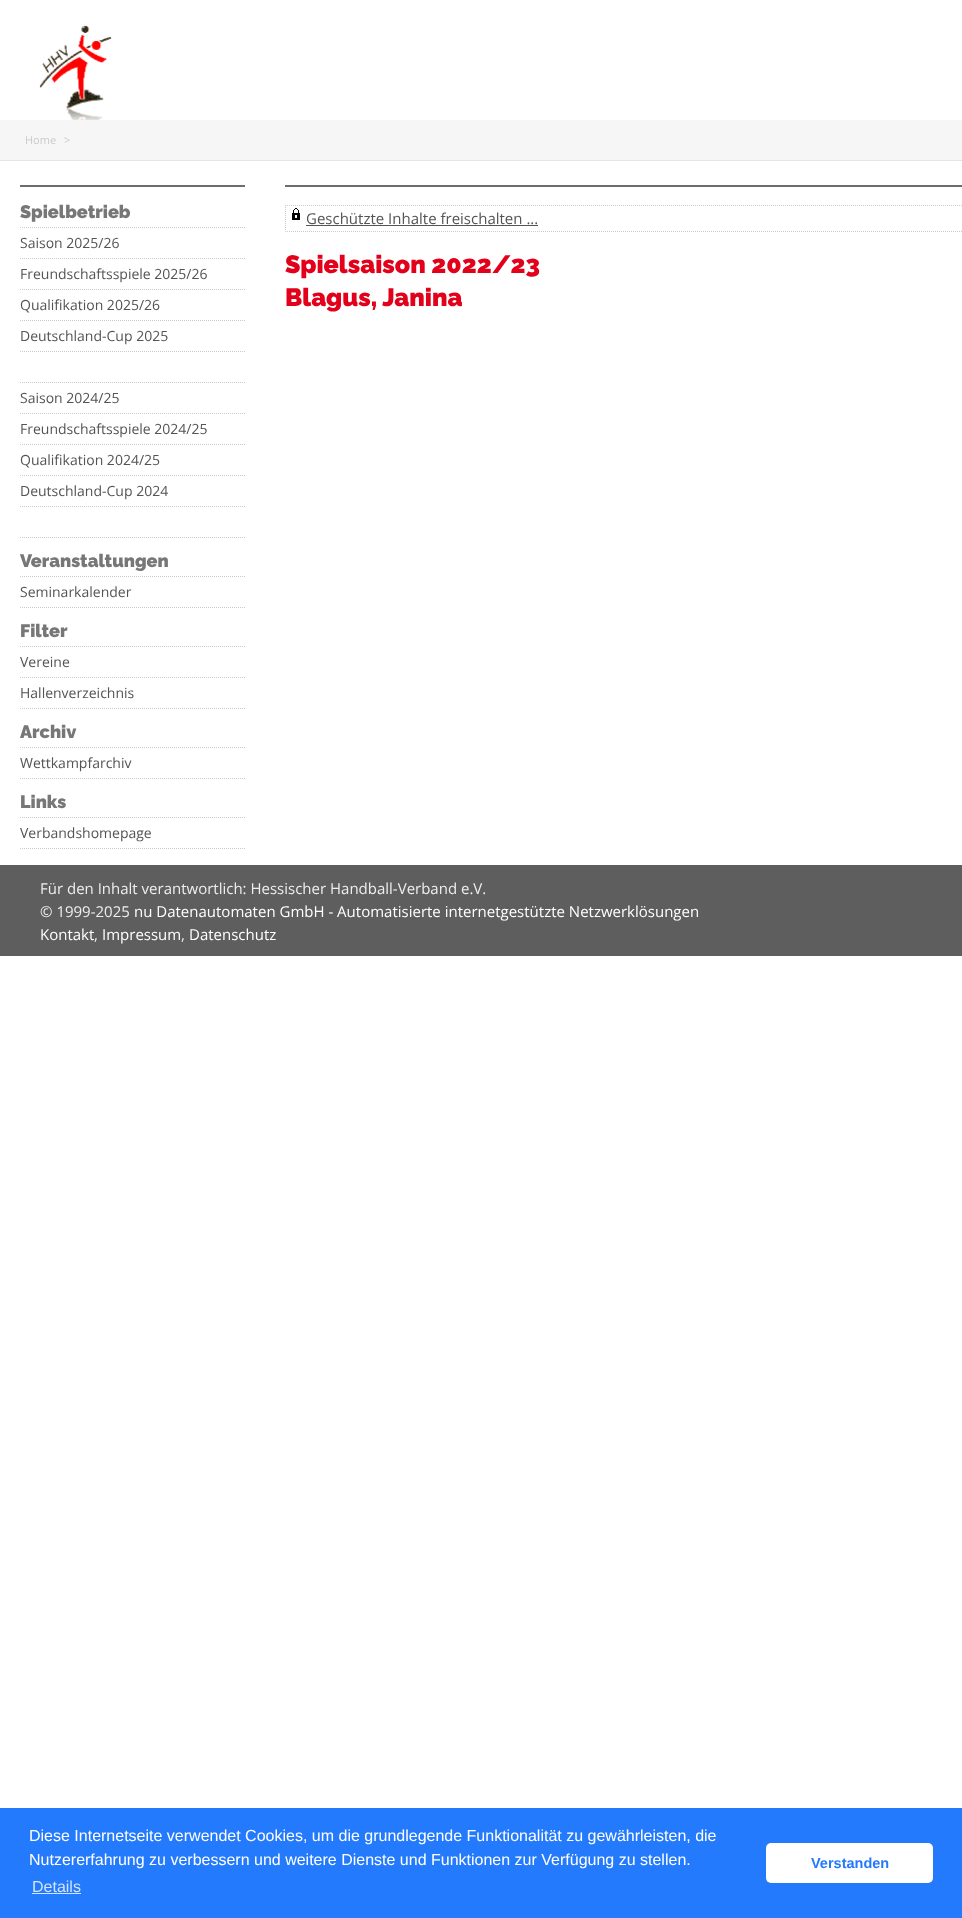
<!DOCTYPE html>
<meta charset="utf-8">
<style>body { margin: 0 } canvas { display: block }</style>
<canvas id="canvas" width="962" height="1918"></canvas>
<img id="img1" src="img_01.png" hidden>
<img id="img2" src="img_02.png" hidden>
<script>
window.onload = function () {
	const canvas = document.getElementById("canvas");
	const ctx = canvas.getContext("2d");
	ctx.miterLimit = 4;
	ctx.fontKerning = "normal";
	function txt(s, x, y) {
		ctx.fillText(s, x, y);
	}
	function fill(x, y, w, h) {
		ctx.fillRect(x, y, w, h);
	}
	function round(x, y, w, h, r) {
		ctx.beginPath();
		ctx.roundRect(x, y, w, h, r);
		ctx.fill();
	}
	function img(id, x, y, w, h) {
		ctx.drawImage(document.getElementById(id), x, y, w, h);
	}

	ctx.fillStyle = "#FFFFFF";
	fill(0, 0, 962, 1918);
	img("img1", 39, 25, 73, 95);
	ctx.fillStyle = "#F6F6F6";
	fill(0, 120, 962, 40);
	ctx.fillStyle = "#E4E4E4";
	fill(0, 160, 962, 1);
	ctx.fillStyle = "#6D6D6D";
	fill(20, 185, 225, 2);
	ctx.beginPath();
	ctx.moveTo(20, 227.5);
	ctx.lineTo(245, 227.5);
	ctx.strokeStyle = "#CCCCCC";
	ctx.setLineDash([1, 1]);
	ctx.stroke();
	ctx.beginPath();
	ctx.moveTo(20, 258.5);
	ctx.lineTo(245, 258.5);
	ctx.stroke();
	ctx.beginPath();
	ctx.moveTo(20, 289.5);
	ctx.lineTo(245, 289.5);
	ctx.stroke();
	ctx.beginPath();
	ctx.moveTo(20, 320.5);
	ctx.lineTo(245, 320.5);
	ctx.stroke();
	ctx.beginPath();
	ctx.moveTo(20, 351.5);
	ctx.lineTo(245, 351.5);
	ctx.stroke();
	ctx.beginPath();
	ctx.moveTo(20, 382.5);
	ctx.lineTo(245, 382.5);
	ctx.stroke();
	ctx.beginPath();
	ctx.moveTo(20, 413.5);
	ctx.lineTo(245, 413.5);
	ctx.stroke();
	ctx.beginPath();
	ctx.moveTo(20, 444.5);
	ctx.lineTo(245, 444.5);
	ctx.stroke();
	ctx.beginPath();
	ctx.moveTo(20, 475.5);
	ctx.lineTo(245, 475.5);
	ctx.stroke();
	ctx.beginPath();
	ctx.moveTo(20, 506.5);
	ctx.lineTo(245, 506.5);
	ctx.stroke();
	ctx.beginPath();
	ctx.moveTo(20, 537.5);
	ctx.lineTo(245, 537.5);
	ctx.stroke();
	ctx.beginPath();
	ctx.moveTo(20, 576.5);
	ctx.lineTo(245, 576.5);
	ctx.stroke();
	ctx.beginPath();
	ctx.moveTo(20, 607.5);
	ctx.lineTo(245, 607.5);
	ctx.stroke();
	ctx.beginPath();
	ctx.moveTo(20, 646.5);
	ctx.lineTo(245, 646.5);
	ctx.stroke();
	ctx.beginPath();
	ctx.moveTo(20, 677.5);
	ctx.lineTo(245, 677.5);
	ctx.stroke();
	ctx.beginPath();
	ctx.moveTo(20, 708.5);
	ctx.lineTo(245, 708.5);
	ctx.stroke();
	ctx.beginPath();
	ctx.moveTo(20, 747.5);
	ctx.lineTo(245, 747.5);
	ctx.stroke();
	ctx.beginPath();
	ctx.moveTo(20, 778.5);
	ctx.lineTo(245, 778.5);
	ctx.stroke();
	ctx.beginPath();
	ctx.moveTo(20, 817.5);
	ctx.lineTo(245, 817.5);
	ctx.stroke();
	ctx.beginPath();
	ctx.moveTo(20, 848.5);
	ctx.lineTo(245, 848.5);
	ctx.stroke();
	fill(285, 185, 677, 2);
	ctx.beginPath();
	ctx.moveTo(285, 205.5);
	ctx.lineTo(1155, 205.5);
	ctx.stroke();
	ctx.beginPath();
	ctx.moveTo(285, 231.5);
	ctx.lineTo(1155, 231.5);
	ctx.stroke();
	ctx.beginPath();
	ctx.moveTo(285.5, 205);
	ctx.lineTo(285.5, 232);
	ctx.stroke();
	img("img2", 292, 208, 8, 12);
	ctx.fillStyle = "#545454";
	fill(306, 225, 232, 1);
	ctx.fillStyle = "#5E5E5E";
	fill(0, 865, 962, 91);
	ctx.fillStyle = "#237AFC";
	fill(0, 1808, 962, 110);
	ctx.fillStyle = "#D3E4FE";
	fill(32, 1893, 49, 1);
	ctx.fillStyle = "#FFFFFF";
	round(766, 1843, 167, 40, 5);
	ctx.font = "11px Open Sans";
	ctx.fillStyle = "#CACACA";
	txt("Home", 25, 144);
	txt(">", 64, 144);
	ctx.font = "100 18px Raleway";
	ctx.fillStyle = "#777777";
	txt("Spielbetrieb", 20, 218);
	ctx.font = "14px Open Sans";
	ctx.fillStyle = "#545454";
	txt("Saison 2025/26", 20, 248);
	txt("Freundschaftsspiele 2025/26", 20, 279);
	txt("Qualifikation 2025/26", 20, 310);
	txt("Deutschland-Cup 2025", 20, 341);
	txt("Saison 2024/25", 20, 403);
	txt("Freundschaftsspiele 2024/25", 20, 434);
	txt("Qualifikation 2024/25", 20, 465);
	txt("Deutschland-Cup 2024", 20, 496);
	ctx.font = "100 18px Raleway";
	ctx.fillStyle = "#777777";
	txt("Veranstaltungen", 20, 567);
	ctx.font = "14px Open Sans";
	ctx.fillStyle = "#545454";
	txt("Seminarkalender", 20, 597);
	ctx.font = "100 18px Raleway";
	ctx.fillStyle = "#777777";
	txt("Filter", 20, 637);
	ctx.font = "14px Open Sans";
	ctx.fillStyle = "#545454";
	txt("Vereine", 20, 667);
	txt("Hallenverzeichnis", 20, 698);
	ctx.font = "100 18px Raleway";
	ctx.fillStyle = "#777777";
	txt("Archiv", 20, 738);
	ctx.font = "14px Open Sans";
	ctx.fillStyle = "#545454";
	txt("Wettkampfarchiv", 20, 768);
	ctx.font = "100 18px Raleway";
	ctx.fillStyle = "#777777";
	txt("Links", 20, 808);
	ctx.font = "14px Open Sans";
	ctx.fillStyle = "#545454";
	txt("Verbandshomepage", 20, 838);
	ctx.font = "15px Open Sans";
	txt("Geschützte Inhalte freischalten ...", 306, 224);
	ctx.font = "100 25px Raleway";
	ctx.fillStyle = "#E2001A";
	txt("Spielsaison 2022/23", 285, 273);
	txt("Blagus, Janina", 285, 306);
	ctx.font = "15px Open Sans";
	ctx.fillStyle = "#EEEEEE";
	txt("Für den Inhalt verantwortlich: Hessischer Handball-Verband e.V.", 40, 894);
	txt("© 1999-2025", 40, 917);
	ctx.fillStyle = "#FFFFFF";
	txt("nu Datenautomaten GmbH - Automatisierte internetgestützte Netzwerklösungen", 134, 917);
	txt("Kontakt", 40, 940);
	ctx.fillStyle = "#EEEEEE";
	txt(",", 94, 940);
	ctx.fillStyle = "#FFFFFF";
	txt("Impressum", 102, 940);
	ctx.fillStyle = "#EEEEEE";
	txt(",", 181, 940);
	ctx.fillStyle = "#FFFFFF";
	txt("Datenschutz", 189, 940);
	ctx.font = "16px Liberation Sans";
	txt("Diese Internetseite verwendet Cookies, um die grundlegende Funktionalität zu gewährleisten, die", 29, 1841);
	txt("Nutzererfahrung zu verbessern und weitere Dienste und Funktionen zur Verfügung zu stellen.", 29, 1865);
	ctx.fillStyle = "#D3E4FE";
	txt("Details", 32, 1892);
	ctx.font = "bold 14.5px Liberation Sans";
	ctx.fillStyle = "#237AFC";
	txt("Verstanden", 811, 1868);
};
</script>
